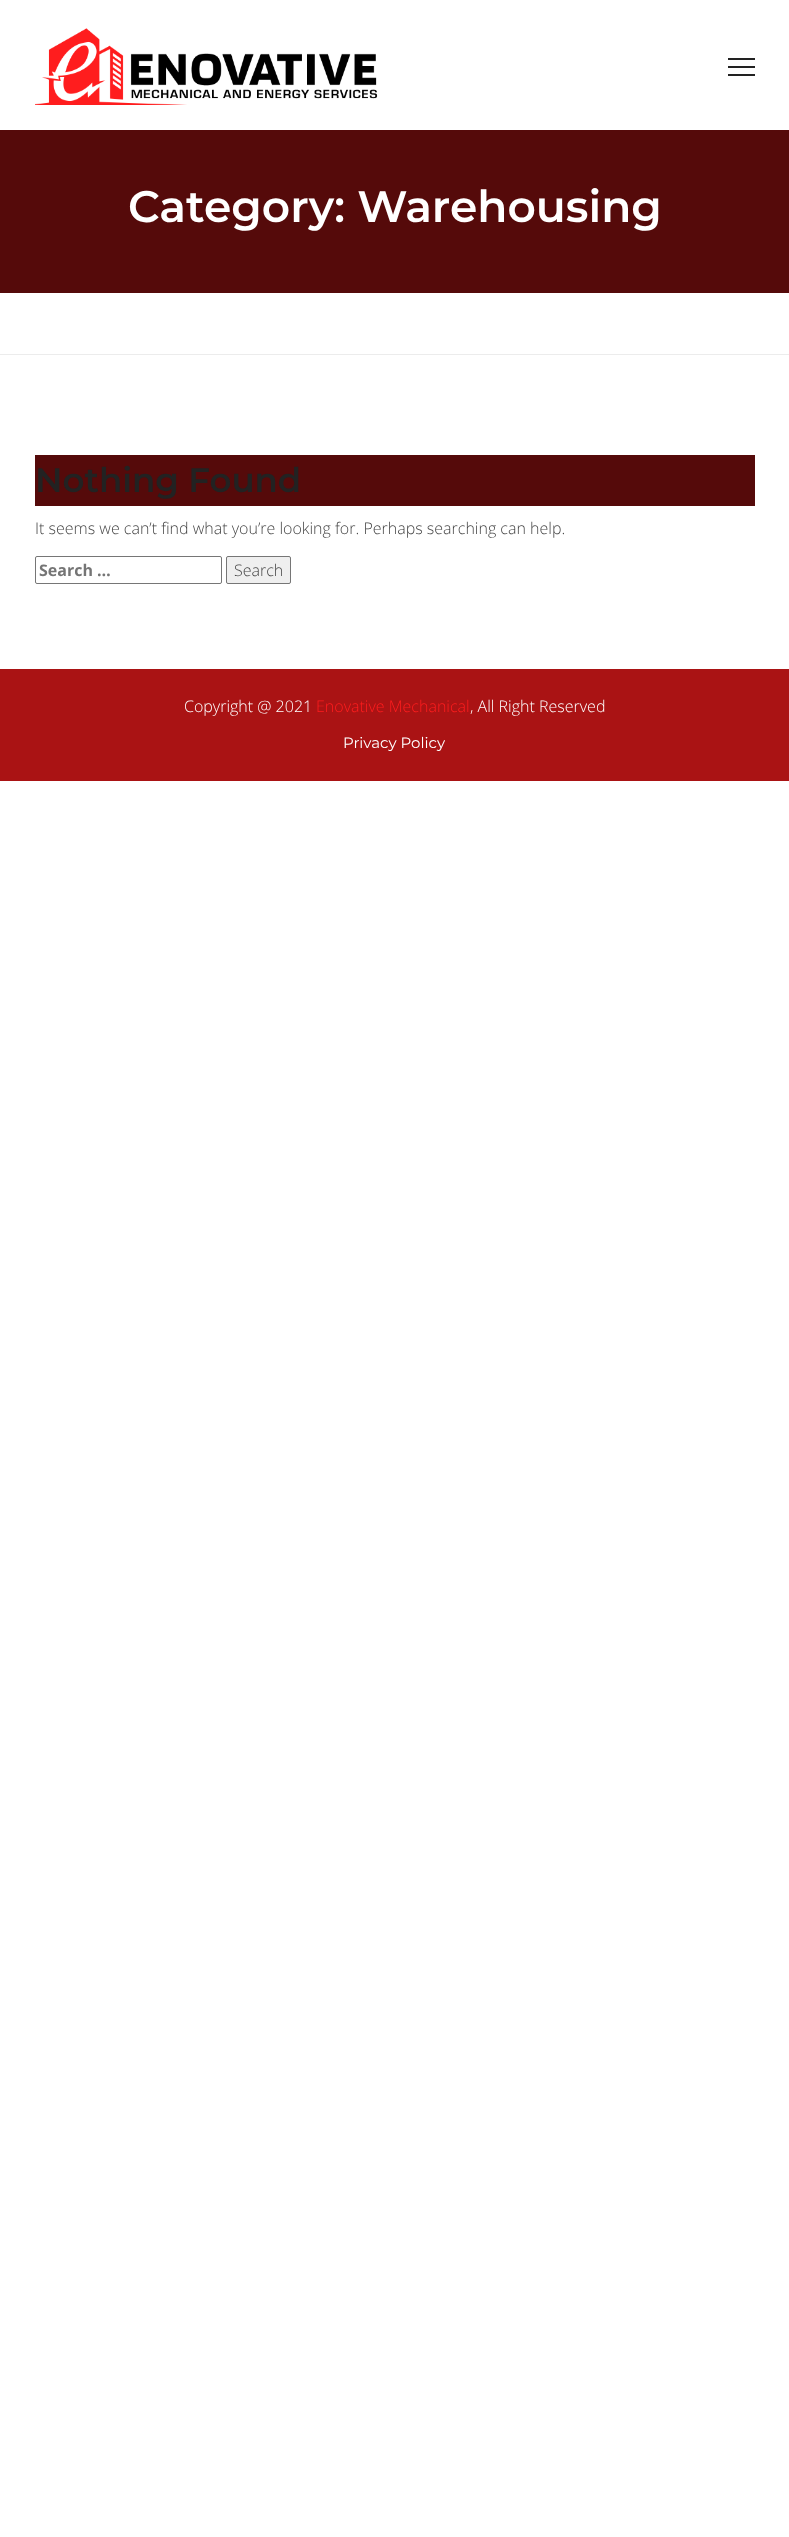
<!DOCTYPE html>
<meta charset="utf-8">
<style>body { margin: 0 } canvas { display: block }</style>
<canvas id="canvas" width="789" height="2537"></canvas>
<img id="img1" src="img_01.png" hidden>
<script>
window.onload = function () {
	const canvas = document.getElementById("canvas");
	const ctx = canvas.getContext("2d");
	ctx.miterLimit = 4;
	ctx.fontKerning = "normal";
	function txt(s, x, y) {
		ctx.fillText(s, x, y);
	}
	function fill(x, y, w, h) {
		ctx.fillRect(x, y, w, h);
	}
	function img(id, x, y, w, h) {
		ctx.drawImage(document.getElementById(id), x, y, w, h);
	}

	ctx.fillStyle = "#FFFFFF";
	fill(0, 0, 789, 2537);
	img("img1", 35, 28, 343, 77);
	ctx.fillStyle = "#222222";
	fill(728, 66, 27, 2);
	fill(728, 58, 27, 2);
	fill(728, 74, 27, 2);
	ctx.fillStyle = "#550A0A";
	fill(0, 130, 789, 163);
	ctx.fillStyle = "#ECECEC";
	fill(0, 354, 789, 1);
	ctx.fillStyle = "#550A0A";
	fill(35, 455, 720, 51);
	ctx.beginPath();
	ctx.roundRect(35.5, 556.5, 186, 27, 1.5);
	ctx.strokeStyle = "#767676";
	ctx.stroke();
	ctx.fillStyle = "#EFEFEF";
	ctx.beginPath();
	ctx.roundRect(226.5, 556.5, 64, 27, 1.5);
	ctx.fill();
	ctx.stroke();
	ctx.fillStyle = "#AA1314";
	fill(0, 669, 789, 112);
	ctx.font = "100 44px Montserrat";
	ctx.fillStyle = "#FFFFFF";
	txt("Category: Warehousing", 128, 222);
	ctx.font = "100 34px Montserrat";
	ctx.fillStyle = "#222222";
	txt("Nothing Found", 35, 492);
	ctx.font = "300 16px Open Sans";
	ctx.fillStyle = "#474747";
	txt("It seems we can’t find what you’re looking for. Perhaps searching can help.", 35, 534);
	ctx.font = "bold 16px Open Sans";
	ctx.fillStyle = "#757575";
	txt("Search …", 39, 576);
	ctx.font = "300 16px Open Sans";
	ctx.fillStyle = "#474747";
	txt("Search", 234, 576);
	ctx.fillStyle = "#FFFFFF";
	txt("Copyright @ 2021", 184, 712);
	ctx.fillStyle = "#FF1D1E";
	txt("Enovative Mechanical", 316, 712);
	ctx.fillStyle = "#FFFFFF";
	txt(", All Right Reserved", 470, 712);
	ctx.font = "15px Montserrat";
	txt("Privacy Policy", 343, 748);
};
</script>
